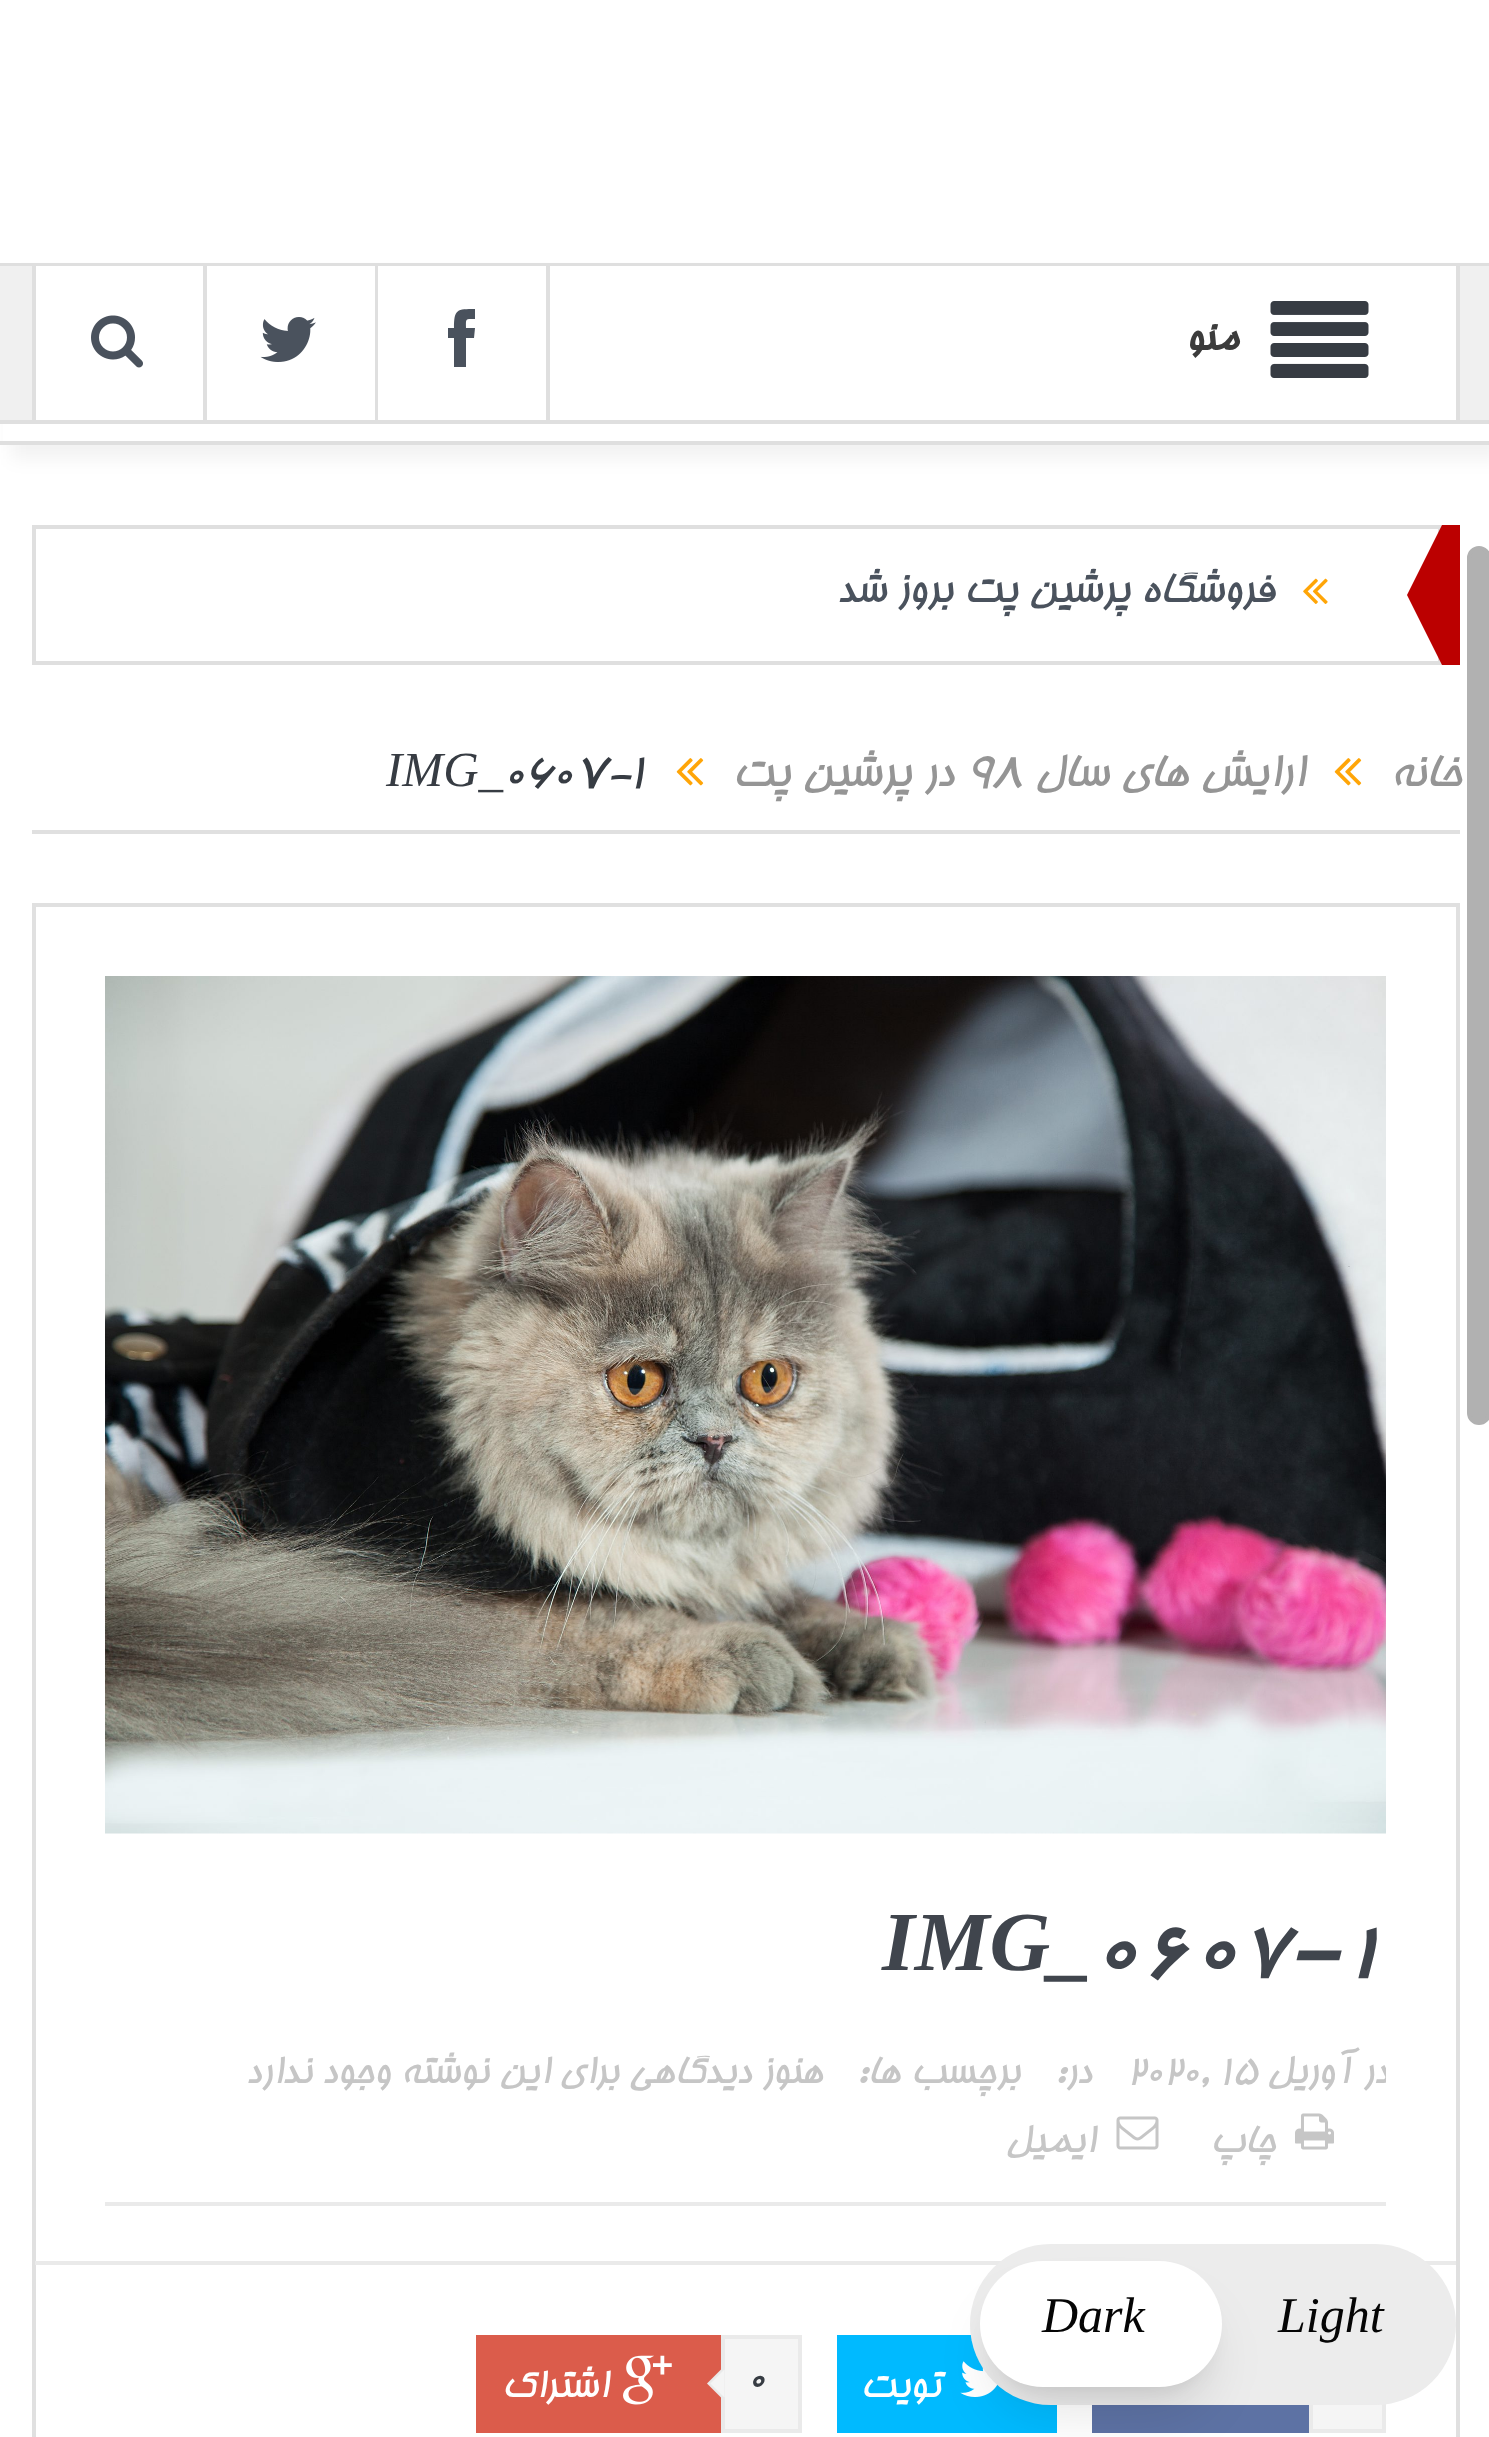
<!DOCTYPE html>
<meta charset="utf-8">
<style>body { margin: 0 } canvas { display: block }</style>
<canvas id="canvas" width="1489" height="2437"></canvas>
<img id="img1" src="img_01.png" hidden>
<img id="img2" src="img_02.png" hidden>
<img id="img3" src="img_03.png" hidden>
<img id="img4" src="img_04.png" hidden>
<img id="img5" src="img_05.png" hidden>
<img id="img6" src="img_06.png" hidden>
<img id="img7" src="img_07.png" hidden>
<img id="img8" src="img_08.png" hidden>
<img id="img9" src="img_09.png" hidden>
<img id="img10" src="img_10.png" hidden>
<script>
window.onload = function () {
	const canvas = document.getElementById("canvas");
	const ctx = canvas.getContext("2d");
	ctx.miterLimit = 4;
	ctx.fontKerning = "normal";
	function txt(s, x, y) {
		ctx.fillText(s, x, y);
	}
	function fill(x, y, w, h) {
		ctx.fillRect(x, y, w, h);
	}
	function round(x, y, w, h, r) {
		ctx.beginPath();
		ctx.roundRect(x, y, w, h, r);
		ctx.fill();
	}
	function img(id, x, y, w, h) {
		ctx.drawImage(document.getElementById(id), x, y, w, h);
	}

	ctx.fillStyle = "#FFFFFF";
	fill(0, 0, 1489, 2437);
	ctx.fillStyle = "#B1B1B1";
	ctx.beginPath();
	ctx.roundRect(1469, 548, 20, 875, 10);
	ctx.fill();
	ctx.strokeStyle = "#B1B1B1";
	ctx.lineWidth = 4;
	ctx.stroke();
	ctx.fillStyle = "rgba(0, 0, 0, 0.05)";
	ctx.filter = "blur(9px)";
	ctx.beginPath();
	ctx.rect(11, 277, 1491, 182);
	ctx.fill();
	ctx.filter = "none";
	ctx.fillStyle = "#FFFFFF";
	fill(3, 424, 1486, 17);
	ctx.fillStyle = "#DFDFDF";
	fill(0, 263, 1489, 3);
	fill(0, 441, 1489, 4);
	ctx.fillStyle = "#F0F0F0";
	fill(0, 266, 1489, 154);
	ctx.fillStyle = "#DFDFDF";
	fill(0, 420, 1489, 4);
	ctx.fillStyle = "#FFFFFF";
	fill(207, 266, 1249, 154);
	ctx.fillStyle = "#DFDFDF";
	fill(1456, 266, 4, 154);
	img("img1", 1270, 301, 99, 77);
	fill(546, 266, 4, 154);
	ctx.fillStyle = "#4A525D";
	ctx.beginPath();
	ctx.moveTo(466, 328);
	ctx.lineTo(475, 328);
	ctx.lineTo(474, 338);
	ctx.lineTo(466, 338);
	ctx.lineTo(466, 367);
	ctx.lineTo(454, 367);
	ctx.lineTo(454, 338);
	ctx.lineTo(448, 338);
	ctx.lineTo(448, 328);
	ctx.lineTo(454, 328);
	ctx.bezierCurveTo(454, 309, 457, 309, 475, 309);
	ctx.lineTo(475, 319);
	ctx.bezierCurveTo(465, 319, 466, 318, 466, 328);
	ctx.closePath();
	ctx.fill();
	ctx.fillStyle = "#DFDFDF";
	fill(375, 266, 3, 154);
	img("img2", 260, 317, 56, 45);
	ctx.fillStyle = "#FFFFFF";
	fill(36, 266, 167, 154);
	ctx.fillStyle = "#DFDFDF";
	fill(203, 266, 4, 154);
	fill(32, 266, 4, 154);
	img("img3", 91, 315, 52, 53);
	ctx.fillStyle = "#BB0000";
	fill(1442, 525, 18, 140);
	ctx.strokeStyle = "#DFDFDF";
	ctx.strokeRect(34, 527, 1406, 136);
	ctx.beginPath();
	ctx.moveTo(1442, 525);
	ctx.lineTo(1442, 665);
	ctx.lineTo(1407, 595);
	ctx.closePath();
	ctx.fill();
	img("img4", 1303, 578, 25, 26);
	ctx.fillStyle = "#E0E0E0";
	fill(32, 830, 1428, 4);
	img("img5", 1334, 758, 28, 28);
	img("img5", 676, 758, 28, 28);
	ctx.strokeStyle = "#E0E0E0";
	ctx.strokeRect(34, 905, 1424, 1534);
	img("img6", 105, 976, 1281, 858);
	ctx.fillStyle = "#EAEAEA";
	fill(105, 2202, 1281, 4);
	img("img7", 1295, 2113, 39, 37);
	img("img8", 1116, 2116, 43, 34);
	fill(35, 2261, 1421, 4);
	ctx.fillStyle = "#F5F5F5";
	fill(1313, 2404, 69, 25);
	ctx.strokeStyle = "#EAEAEA";
	ctx.strokeRect(1311, 2337, 73, 94);
	ctx.fillStyle = "#5D72A4";
	fill(1092, 2405, 217, 28);
	ctx.fillStyle = "#00BAFF";
	fill(837, 2335, 220, 98);
	img("img9", 960, 2361, 38, 36);
	ctx.fillStyle = "#F5F5F5";
	ctx.beginPath();
	ctx.rect(723, 2337, 77, 94);
	ctx.fill();
	ctx.stroke();
	ctx.fillStyle = "#DB5C4B";
	fill(476, 2335, 245, 98);
	ctx.fillStyle = "#EAEAEA";
	ctx.beginPath();
	ctx.moveTo(724.5, 2366);
	ctx.lineTo(724.5, 2401);
	ctx.lineTo(707, 2383.5);
	ctx.closePath();
	ctx.fill();
	ctx.fillStyle = "#F5F5F5";
	ctx.beginPath();
	ctx.moveTo(724.5, 2369.5);
	ctx.lineTo(724.5, 2397.5);
	ctx.lineTo(710.5, 2383.5);
	ctx.closePath();
	ctx.fill();
	img("img10", 623, 2355, 49, 50);
	ctx.fillStyle = "#ECECEC";
	round(970, 2244, 486, 161, 80.5);
	ctx.fillStyle = "rgba(0, 0, 0, 0.1)";
	ctx.filter = "blur(10.5px)";
	ctx.beginPath();
	ctx.roundRect(994, 2289, 214, 98, 49);
	ctx.fill();
	ctx.filter = "none";
	ctx.filter = "blur(26px)";
	ctx.beginPath();
	ctx.roundRect(991, 2307, 220, 105, 52.5);
	ctx.fill();
	ctx.filter = "none";
	ctx.fillStyle = "#FFFFFF";
	round(980, 2261, 242, 126, 63);
	ctx.direction = "rtl";
	ctx.font = "italic bold 42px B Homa";
	ctx.fillStyle = "#3C3C3C";
	txt("منو", 1237, 350);
	ctx.font = "italic 45.5px B Homa";
	ctx.fillStyle = "#4A525D";
	txt("فروشگاه پرشین پت بروز شد", 1274, 602);
	ctx.font = "italic 49px B Homa";
	ctx.fillStyle = "#959595";
	txt("خانه", 1461, 786);
	txt("ارایش های سال", 1303, 786);
	ctx.direction = "ltr";
	txt("98", 965, 786);
	ctx.direction = "rtl";
	txt("در پرشین پت", 953, 786);
	ctx.direction = "ltr";
	ctx.fillStyle = "#373C43";
	txt("0607-1", 503, 786);
	ctx.font = "italic 49px Liberation Serif";
	txt("IMG_", 386, 786);
	ctx.font = "italic bold 84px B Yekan";
	ctx.fillStyle = "#40454D";
	txt("0607-1", 1092, 1970);
	ctx.font = "italic bold 84px Liberation Serif";
	txt("IMG_", 882, 1970);
	ctx.save();
	ctx.beginPath();
	ctx.rect(105, 2048, 1281, 154);
	ctx.clip();
	ctx.direction = "rtl";
	ctx.font = "italic 42px B Homa";
	ctx.fillStyle = "#C6C6C6";
	txt("در", 1388, 2083);
	ctx.restore();
	ctx.direction = "rtl";
	ctx.font = "italic 42px B Homa";
	ctx.fillStyle = "#C6C6C6";
	txt("آوریل", 1351, 2083);
	ctx.direction = "ltr";
	txt("2020, 15", 1126, 2083);
	ctx.direction = "rtl";
	txt("در:", 1091, 2083);
	txt("برچسب ها:", 1019, 2083);
	txt("هنوز دیدگاهی برای این نوشته وجود ندارد", 822, 2083);
	txt("چاپ", 1275, 2152);
	txt("ایمیل", 1094, 2152);
	ctx.fillStyle = "#FFFFFF";
	txt("تویت", 940, 2397);
	ctx.direction = "ltr";
	ctx.fillStyle = "#373C43";
	txt("0", 747, 2389);
	ctx.direction = "rtl";
	ctx.fillStyle = "#FFFFFF";
	txt("اشتراک", 607, 2397);
	ctx.direction = "ltr";
	ctx.font = "italic 50px Liberation Serif";
	ctx.fillStyle = "#050505";
	txt("Light", 1278, 2332);
	txt("Dark", 1042, 2332);
};
</script>
